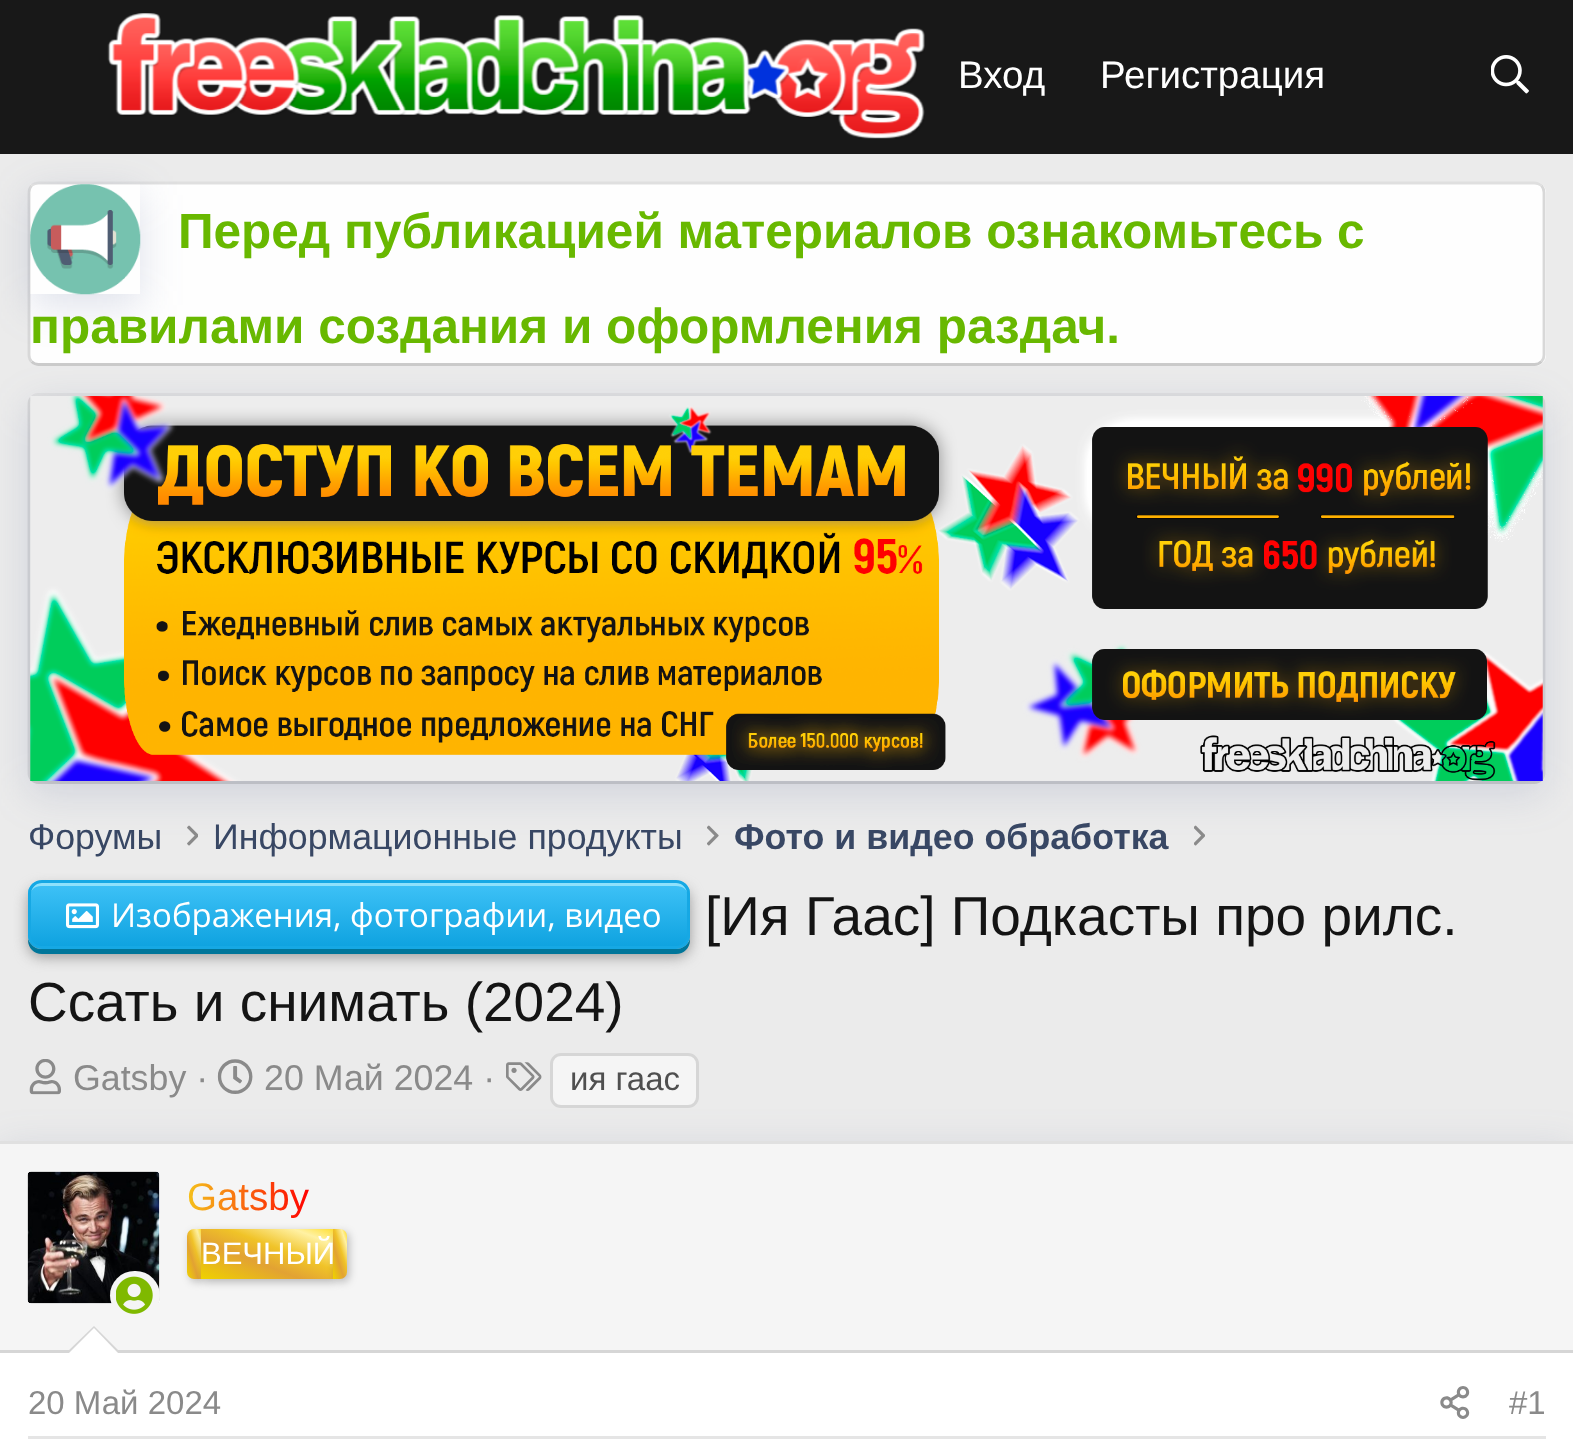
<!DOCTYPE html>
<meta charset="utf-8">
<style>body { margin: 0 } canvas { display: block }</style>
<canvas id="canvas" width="1573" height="1440"></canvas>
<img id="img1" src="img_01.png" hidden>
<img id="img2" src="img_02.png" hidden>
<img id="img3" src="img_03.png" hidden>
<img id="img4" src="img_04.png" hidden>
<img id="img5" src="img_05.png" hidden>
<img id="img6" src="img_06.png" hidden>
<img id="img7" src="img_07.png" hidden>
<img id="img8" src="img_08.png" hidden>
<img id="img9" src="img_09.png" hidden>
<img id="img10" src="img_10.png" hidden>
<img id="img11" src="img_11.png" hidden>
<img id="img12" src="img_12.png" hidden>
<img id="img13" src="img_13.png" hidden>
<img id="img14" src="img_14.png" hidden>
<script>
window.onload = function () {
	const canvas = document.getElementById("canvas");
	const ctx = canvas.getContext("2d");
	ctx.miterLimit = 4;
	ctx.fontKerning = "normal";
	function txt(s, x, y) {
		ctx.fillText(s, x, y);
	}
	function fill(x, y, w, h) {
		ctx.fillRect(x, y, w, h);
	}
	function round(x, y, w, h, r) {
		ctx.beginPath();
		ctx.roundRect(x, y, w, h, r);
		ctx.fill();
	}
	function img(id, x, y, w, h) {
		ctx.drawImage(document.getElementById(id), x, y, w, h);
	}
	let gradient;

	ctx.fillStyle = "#EBEBEB";
	fill(0, 0, 1573, 1440);
	ctx.fillStyle = "#FEFEFE";
	round(28, 182, 1518, 184, 11);
	ctx.beginPath();
	ctx.moveTo(31.5, 185.5);
	ctx.bezierCurveTo(33.5, 184, 36, 183, 38.5, 183);
	ctx.lineTo(1534.5, 183);
	ctx.bezierCurveTo(1537, 183, 1539.5, 184, 1541.5, 185.5);
	ctx.strokeStyle = "#DFDFDF";
	ctx.lineWidth = 2.8;
	ctx.stroke();
	ctx.beginPath();
	ctx.moveTo(1541.5, 185.5);
	ctx.bezierCurveTo(1543, 187.5, 1544, 190, 1544, 192.5);
	ctx.lineTo(1544, 355);
	ctx.bezierCurveTo(1544, 357.5, 1543, 360, 1541.5, 361.5);
	ctx.strokeStyle = "#D8D8D8";
	ctx.stroke();
	ctx.beginPath();
	ctx.moveTo(1541.5, 361.5);
	ctx.bezierCurveTo(1539.5, 363.5, 1537, 364.5, 1534.5, 364.5);
	ctx.lineTo(38.5, 364.5);
	ctx.bezierCurveTo(36, 364.5, 33.5, 363.5, 31.5, 361.5);
	ctx.strokeStyle = "#CBCBCB";
	ctx.stroke();
	ctx.beginPath();
	ctx.moveTo(31.5, 361.5);
	ctx.bezierCurveTo(30, 360, 29, 357.5, 29, 355);
	ctx.lineTo(29, 192.5);
	ctx.bezierCurveTo(29, 190, 30, 187.5, 31.5, 185.5);
	ctx.strokeStyle = "#D8D8D8";
	ctx.stroke();
	ctx.save();
	ctx.beginPath();
	ctx.moveTo(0, 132);
	ctx.lineTo(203, 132);
	ctx.lineTo(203, 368);
	ctx.lineTo(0, 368);
	ctx.closePath();
	ctx.moveTo(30, 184);
	ctx.lineTo(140, 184);
	ctx.lineTo(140, 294);
	ctx.lineTo(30, 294);
	ctx.closePath();
	ctx.clip("evenodd");
	ctx.fillStyle = "rgba(88, 106, 153, 0.2)";
	ctx.filter = "blur(20.5px)";
	ctx.beginPath();
	ctx.rect(30, 195, 110, 110);
	ctx.fill();
	ctx.filter = "none";
	ctx.restore();
	ctx.fillStyle = "#181818";
	fill(0, 0, 1573, 154);
	img("img1", 107, 13, 818, 126);
	img("img2", 1491, 55, 38, 39);
	img("img3", 30, 184, 111, 111);
	ctx.beginPath();
	ctx.moveTo(31.5, 397.5);
	ctx.bezierCurveTo(33.5, 395.5, 36, 394.5, 38.5, 394.5);
	ctx.lineTo(1534.5, 394.5);
	ctx.bezierCurveTo(1537, 394.5, 1539.5, 395.5, 1541.5, 397.5);
	ctx.strokeStyle = "#E0E0E0";
	ctx.stroke();
	ctx.beginPath();
	ctx.moveTo(1541.5, 397.5);
	ctx.bezierCurveTo(1543, 399, 1544, 401.5, 1544, 404);
	ctx.lineTo(1544, 773);
	ctx.bezierCurveTo(1544, 775.5, 1543, 778, 1541.5, 779.5);
	ctx.strokeStyle = "#D6D6D6";
	ctx.stroke();
	ctx.beginPath();
	ctx.moveTo(1541.5, 779.5);
	ctx.bezierCurveTo(1539.5, 781.5, 1537, 782.5, 1534.5, 782.5);
	ctx.lineTo(38.5, 782.5);
	ctx.bezierCurveTo(36, 782.5, 33.5, 781.5, 31.5, 779.5);
	ctx.strokeStyle = "#CCCCCC";
	ctx.stroke();
	ctx.beginPath();
	ctx.moveTo(31.5, 779.5);
	ctx.bezierCurveTo(30, 778, 29, 775.5, 29, 773);
	ctx.lineTo(29, 404);
	ctx.bezierCurveTo(29, 401.5, 30, 399, 31.5, 397.5);
	ctx.strokeStyle = "#D6D6D6";
	ctx.stroke();
	ctx.fillStyle = "rgba(88, 106, 153, 0.2)";
	ctx.filter = "blur(20.5px)";
	ctx.beginPath();
	ctx.rect(30, 407, 1513, 385);
	ctx.fill();
	ctx.filter = "none";
	img("img4", 30, 396, 1513, 385);
	img("img5", 187, 825, 11, 21);
	img("img6", 707, 825, 12, 21);
	img("img7", 1194, 825, 11, 21);
	ctx.fillStyle = "#999999";
	ctx.filter = "blur(7px)";
	ctx.beginPath();
	ctx.roundRect(28, 888, 662, 69, 14);
	ctx.fill();
	ctx.filter = "none";
	ctx.fillStyle = "#00769A";
	ctx.beginPath();
	ctx.moveTo(28, 939);
	ctx.lineTo(28, 940);
	ctx.bezierCurveTo(28, 948, 34, 954, 42, 954);
	ctx.lineTo(676, 954);
	ctx.bezierCurveTo(684, 954, 690, 948, 690, 940);
	ctx.lineTo(690, 938);
	ctx.bezierCurveTo(689, 944, 683, 949, 676, 949);
	ctx.lineTo(41, 949);
	ctx.bezierCurveTo(35, 949, 30, 944, 28, 939);
	ctx.closePath();
	ctx.fill();
	ctx.save();
	ctx.beginPath();
	ctx.roundRect(28, 880, 662, 69, 14);
	ctx.clip();
	gradient = ctx.createLinearGradient(359, 946, 359, 883);
	gradient.addColorStop(0, "#0FA3E0");
	gradient.addColorStop(1, "#3FC2F7");
	ctx.fillStyle = gradient;
	fill(28, 883, 662, 63);
	ctx.restore();
	ctx.fillStyle = "#8FE1FB";
	ctx.beginPath();
	ctx.moveTo(41, 886);
	ctx.lineTo(676, 886);
	ctx.bezierCurveTo(683, 886, 688, 890, 688, 896);
	ctx.bezierCurveTo(688, 889, 684, 883, 677, 883);
	ctx.lineTo(41, 883);
	ctx.bezierCurveTo(34, 883, 30, 889, 30, 896);
	ctx.bezierCurveTo(30, 890, 35, 886, 41, 886);
	ctx.closePath();
	ctx.fill();
	ctx.beginPath();
	ctx.roundRect(29.5, 881.5, 659, 66, 12.5);
	ctx.strokeStyle = "#16A8E4";
	ctx.lineWidth = 3;
	ctx.stroke();
	img("img8", 66, 903, 33, 26);
	ctx.fillStyle = "#F5F5F5";
	ctx.beginPath();
	ctx.roundRect(551.5, 1054.5, 146, 52, 9.5);
	ctx.fill();
	ctx.strokeStyle = "#D6D6D6";
	ctx.stroke();
	ctx.fillStyle = "rgba(88, 106, 153, 0.2)";
	ctx.filter = "blur(20.5px)";
	ctx.beginPath();
	ctx.rect(0, 1152, 1573, 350);
	ctx.fill();
	ctx.filter = "none";
	img("img9", 29, 1059, 32, 36);
	img("img10", 217, 1059, 36, 35);
	img("img11", 506, 1062, 36, 29);
	ctx.fillStyle = "#FFFFFF";
	fill(0, 1353, 1573, 87);
	ctx.fillStyle = "#E0E0E0";
	fill(0, 1141, 1573, 3);
	ctx.fillStyle = "#F5F5F5";
	fill(0, 1144, 1573, 206);
	ctx.fillStyle = "#D6D6D6";
	fill(0, 1350, 1573, 3);
	ctx.fillStyle = "#FFFFFF";
	round(28, 1172, 132, 132, 4);
	img("img12", 27, 1171, 133, 133);
	ctx.fillStyle = "#F5F5F5";
	round(110, 1271, 50, 49, 24.5);
	img("img13", 116, 1276, 37, 38);
	ctx.fillStyle = "rgba(0, 0, 0, 0.25)";
	ctx.filter = "blur(4px)";
	ctx.beginPath();
	ctx.roundRect(190, 1232, 14, 50, 7);
	ctx.fill();
	ctx.filter = "none";
	gradient = ctx.createLinearGradient(181, 1258, 207, 1250);
	gradient.addColorStop(0, "#EFD100");
	gradient.addColorStop(0.38, "#E2A233");
	gradient.addColorStop(0.6, "#F0C328");
	gradient.addColorStop(0.86, "#FFF1A3");
	gradient.addColorStop(1, "#FFE13E");
	ctx.fillStyle = gradient;
	ctx.beginPath();
	ctx.roundRect(187, 1229, 14, 50, [7, 0, 0, 7]);
	ctx.fill();
	ctx.fillStyle = "rgba(0, 0, 0, 0.25)";
	ctx.filter = "blur(4px)";
	ctx.beginPath();
	ctx.rect(204, 1232, 132, 50);
	ctx.fill();
	ctx.filter = "none";
	gradient = ctx.createLinearGradient(250, 1297, 283, 1211);
	gradient.addColorStop(0, "#EFD100");
	gradient.addColorStop(0.38, "#E2A233");
	gradient.addColorStop(0.6, "#F0C328");
	gradient.addColorStop(0.86, "#FFF1A3");
	gradient.addColorStop(1, "#FFE13E");
	ctx.fillStyle = gradient;
	fill(201, 1229, 132, 50);
	ctx.fillStyle = "rgba(0, 0, 0, 0.25)";
	ctx.filter = "blur(4px)";
	ctx.beginPath();
	ctx.roundRect(336, 1232, 13, 50, 6.5);
	ctx.fill();
	ctx.filter = "none";
	gradient = ctx.createLinearGradient(327, 1258, 352, 1250);
	gradient.addColorStop(0, "#EFD100");
	gradient.addColorStop(0.38, "#E2A233");
	gradient.addColorStop(0.6, "#F0C328");
	gradient.addColorStop(0.86, "#FFF1A3");
	gradient.addColorStop(1, "#FFE13E");
	ctx.fillStyle = gradient;
	ctx.beginPath();
	ctx.roundRect(333, 1229, 14, 50, [0, 7, 7, 0]);
	ctx.fill();
	ctx.fillStyle = "#D6D6D6";
	ctx.beginPath();
	ctx.moveTo(121, 1353);
	ctx.lineTo(66, 1353);
	ctx.lineTo(94, 1326);
	ctx.closePath();
	ctx.fill();
	ctx.fillStyle = "#FFFFFF";
	ctx.beginPath();
	ctx.moveTo(118, 1353);
	ctx.lineTo(69, 1353);
	ctx.lineTo(94, 1328);
	ctx.closePath();
	ctx.fill();
	ctx.fillStyle = "#E5E5E5";
	fill(28, 1436, 1518, 3);
	img("img14", 1440, 1386, 30, 33);
	ctx.font = "38.5px Liberation Sans";
	ctx.fillStyle = "#FFFFFF";
	txt("Вход", 958, 88);
	txt("Регистрация", 1100, 88);
	ctx.font = "bold 49.5px Liberation Sans";
	ctx.fillStyle = "#68B800";
	txt("Перед публикацией материалов ознакомьтесь с", 178, 248);
	txt("правилами создания и оформления раздач.", 30, 343);
	ctx.font = "35.75px Liberation Sans";
	ctx.fillStyle = "#384764";
	txt("Форумы", 28, 849);
	txt("Информационные продукты", 213, 849);
	ctx.font = "bold 35.75px Liberation Sans";
	txt("Фото и видео обработка", 734, 849);
	ctx.font = "33px Open Sans";
	ctx.fillStyle = "#FFFFFF";
	txt("Изображения, фотографии, видео", 111, 927);
	ctx.font = "55px Liberation Sans";
	ctx.fillStyle = "#141414";
	txt("[Ия Гаас] Подкасты про рилс.", 705, 935);
	txt("Ссать и снимать (2024)", 28, 1021);
	ctx.font = "35.75px Liberation Sans";
	ctx.fillStyle = "#8A8A8A";
	txt("Gatsby ·", 73, 1090);
	txt("20 Май 2024 ·", 264, 1090);
	ctx.font = "33px Liberation Sans";
	ctx.fillStyle = "#4F4F4F";
	txt("ия гаас", 570, 1090);
	ctx.font = "38.5px Liberation Sans";
	gradient = ctx.createLinearGradient(187, 1196, 309, 1196);
	gradient.addColorStop(0, "#F5C21B");
	gradient.addColorStop(1, "#FF0000");
	ctx.fillStyle = gradient;
	txt("Gatsby", 187, 1210);
	ctx.font = "31px Liberation Sans";
	ctx.fillStyle = "#FFFFFF";
	txt("ВЕЧНЫЙ", 201, 1264);
	ctx.font = "33px Liberation Sans";
	ctx.fillStyle = "#8A8A8A";
	txt("20 Май 2024", 28, 1414);
	txt("#1", 1509, 1414);
};
</script>
